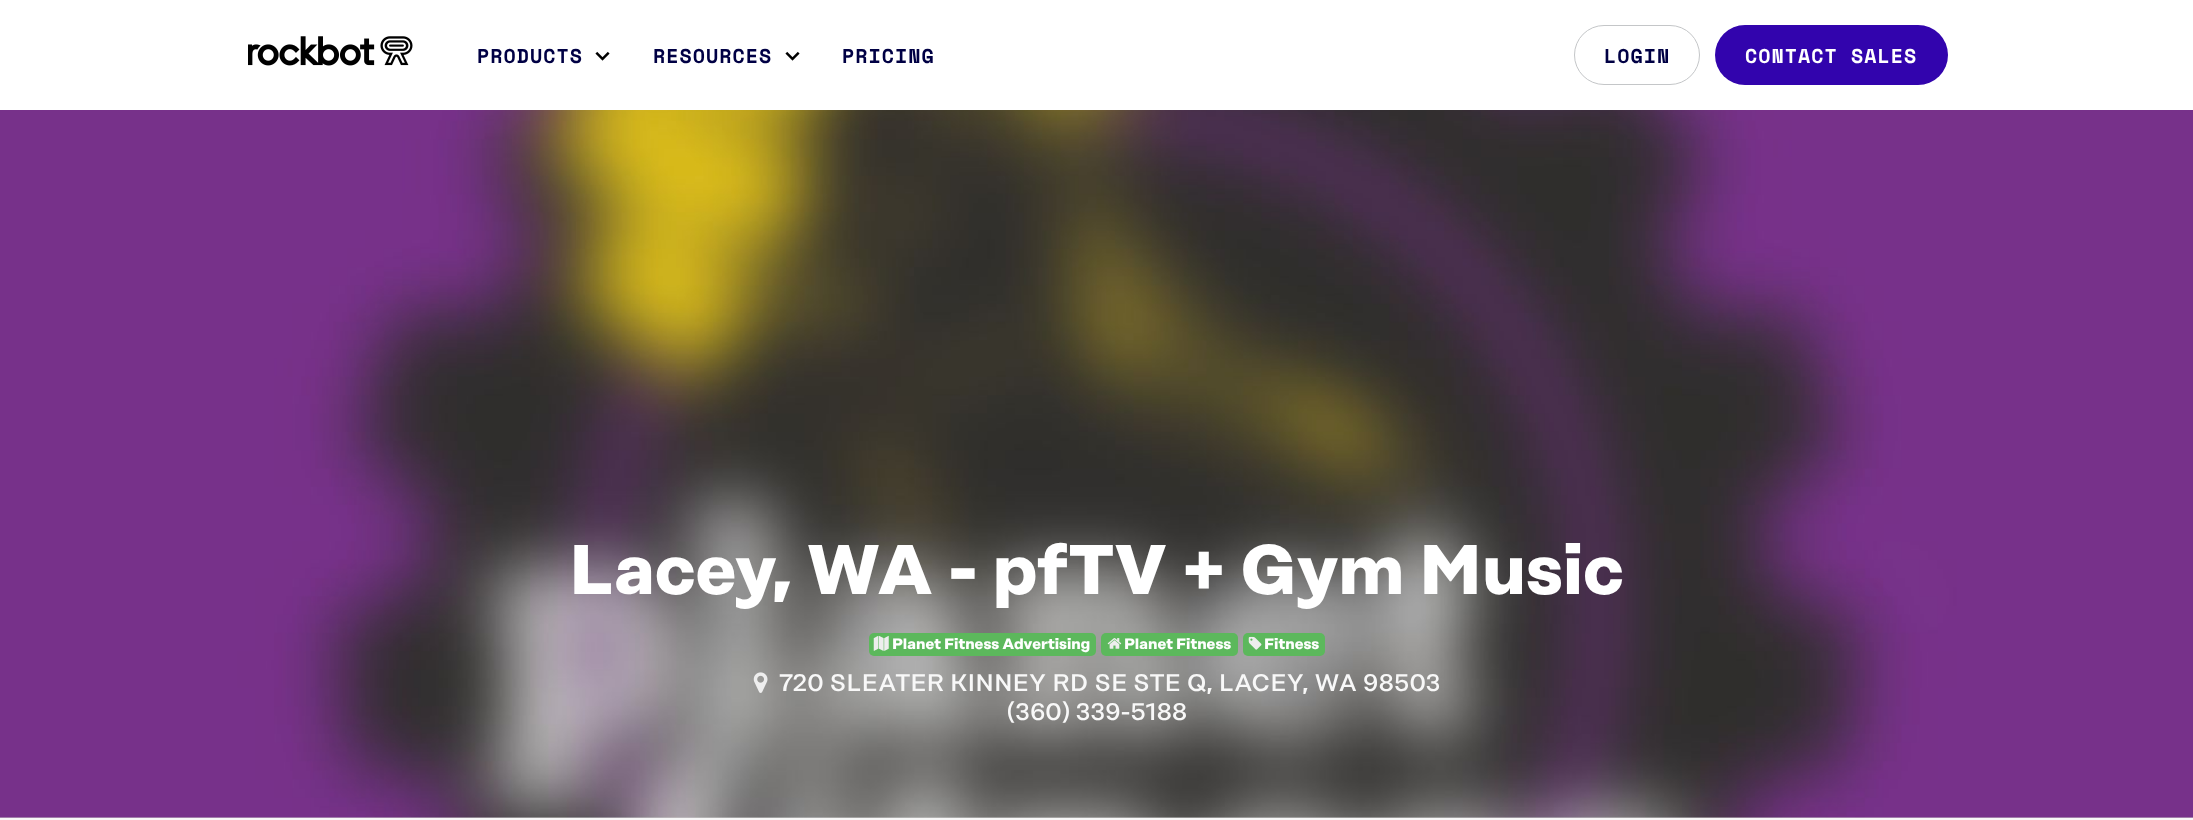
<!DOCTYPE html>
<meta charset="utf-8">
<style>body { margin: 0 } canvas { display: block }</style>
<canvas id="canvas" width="2193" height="820"></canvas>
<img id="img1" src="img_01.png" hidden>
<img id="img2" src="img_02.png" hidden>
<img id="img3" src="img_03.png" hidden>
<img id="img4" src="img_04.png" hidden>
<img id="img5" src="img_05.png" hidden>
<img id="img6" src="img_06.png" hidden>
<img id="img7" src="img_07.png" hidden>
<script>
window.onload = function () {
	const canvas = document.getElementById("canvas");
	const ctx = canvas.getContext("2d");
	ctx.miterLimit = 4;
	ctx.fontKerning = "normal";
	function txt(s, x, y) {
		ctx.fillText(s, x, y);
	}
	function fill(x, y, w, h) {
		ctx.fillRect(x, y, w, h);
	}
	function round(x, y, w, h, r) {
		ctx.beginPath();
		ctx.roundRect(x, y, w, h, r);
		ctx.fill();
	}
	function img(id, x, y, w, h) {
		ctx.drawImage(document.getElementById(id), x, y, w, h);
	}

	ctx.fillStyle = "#FFFFFF";
	fill(0, 0, 2193, 820);
	img("img1", 248, 36, 165, 30);
	img("img2", 595, 51, 15, 10);
	img("img2", 785, 51, 15, 10);
	ctx.beginPath();
	ctx.roundRect(1574.5, 25.5, 125, 59, 29.5);
	ctx.strokeStyle = "#C4C6C8";
	ctx.stroke();
	ctx.fillStyle = "#3204AD";
	round(1715, 25, 233, 60, 30);
	ctx.fillStyle = "#CCCCCC";
	fill(0, 817, 2193, 1);
	img("img3", 0, 110, 2193, 708);
	ctx.fillStyle = "#5CB85C";
	round(869, 633, 227, 23, 5);
	img("img4", 873, 635, 16, 16);
	round(1101, 633, 137, 23, 5);
	img("img5", 1107, 638, 15, 11);
	round(1243, 633, 82, 23, 5);
	img("img6", 1248, 636, 14, 14);
	img("img7", 753, 672, 15, 21);
	ctx.fillStyle = "#F8F8F8";
	fill(0, 818, 2193, 2);
	ctx.letterSpacing = "1px";
	ctx.font = "bold 20px Space Mono";
	ctx.fillStyle = "#000044";
	txt("PRODUCTS", 477, 63);
	txt("RESOURCES", 653, 63);
	txt("PRICING", 842, 63);
	txt("LOGIN", 1604, 63);
	ctx.fillStyle = "#FFFFFF";
	txt("CONTACT SALES", 1745, 63);
	ctx.letterSpacing = "0px";
	ctx.font = "bold 70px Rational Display";
	txt("Lacey, WA - pfTV + Gym Music", 569, 594);
	ctx.font = "bold 15px Rational Display";
	txt("Planet Fitness Advertising", 892, 649);
	txt("Planet Fitness", 1124, 649);
	txt("Fitness", 1264, 649);
	ctx.font = "500 24px Rational Display";
	ctx.fillStyle = "#F8F8F8";
	txt("720 SLEATER KINNEY RD SE STE Q, LACEY, WA 98503", 779, 691);
	txt("(360) 339-5188", 1007, 720);
};
</script>
